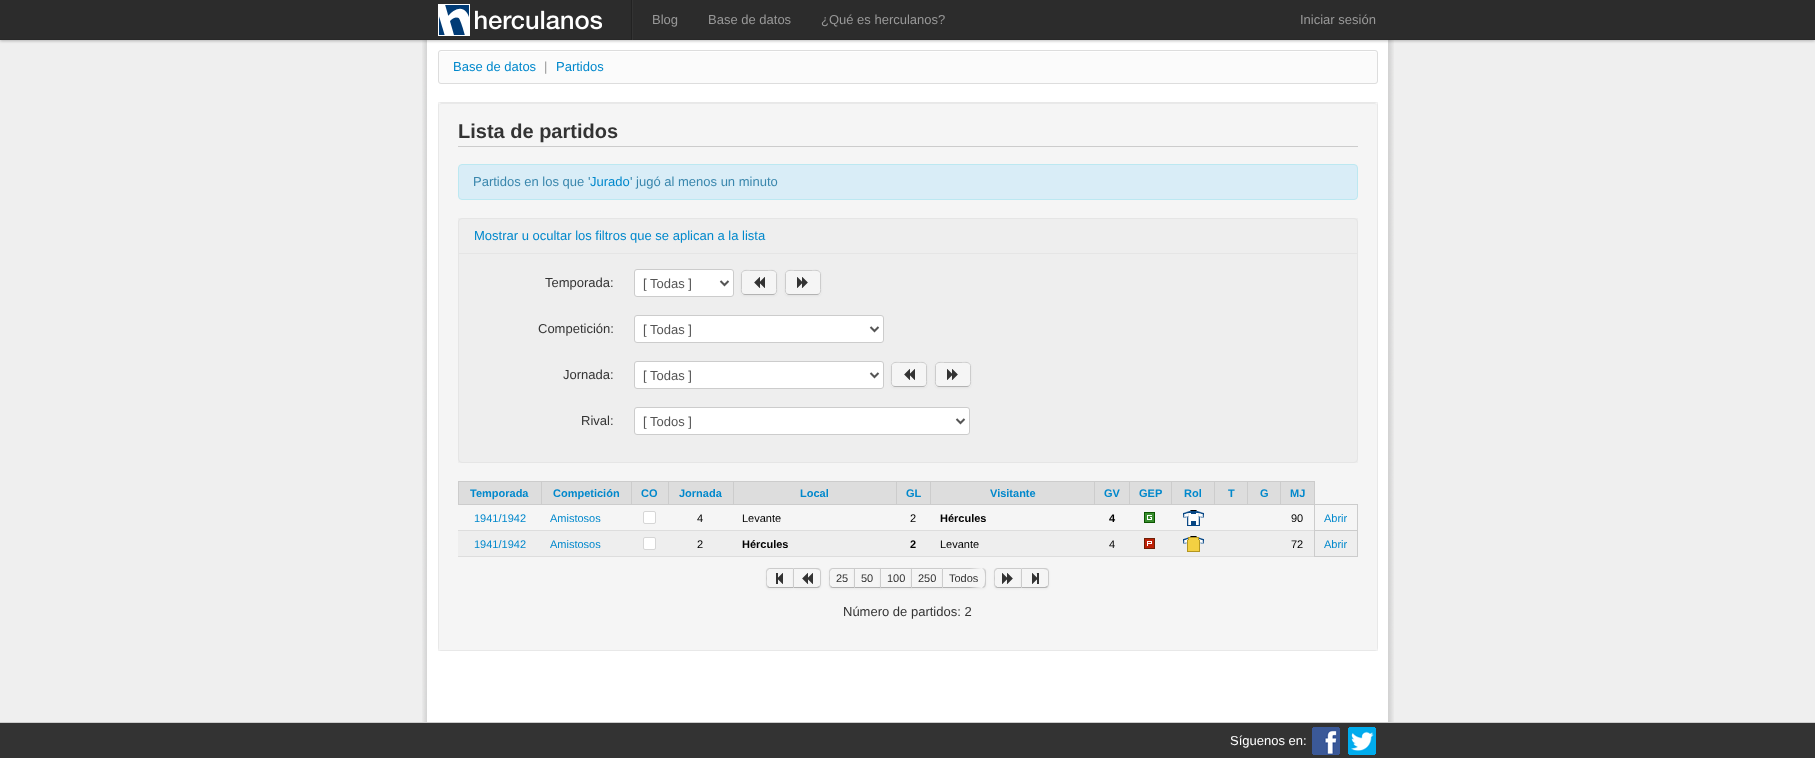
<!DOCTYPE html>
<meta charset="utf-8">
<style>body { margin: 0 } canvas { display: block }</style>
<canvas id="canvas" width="1815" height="758"></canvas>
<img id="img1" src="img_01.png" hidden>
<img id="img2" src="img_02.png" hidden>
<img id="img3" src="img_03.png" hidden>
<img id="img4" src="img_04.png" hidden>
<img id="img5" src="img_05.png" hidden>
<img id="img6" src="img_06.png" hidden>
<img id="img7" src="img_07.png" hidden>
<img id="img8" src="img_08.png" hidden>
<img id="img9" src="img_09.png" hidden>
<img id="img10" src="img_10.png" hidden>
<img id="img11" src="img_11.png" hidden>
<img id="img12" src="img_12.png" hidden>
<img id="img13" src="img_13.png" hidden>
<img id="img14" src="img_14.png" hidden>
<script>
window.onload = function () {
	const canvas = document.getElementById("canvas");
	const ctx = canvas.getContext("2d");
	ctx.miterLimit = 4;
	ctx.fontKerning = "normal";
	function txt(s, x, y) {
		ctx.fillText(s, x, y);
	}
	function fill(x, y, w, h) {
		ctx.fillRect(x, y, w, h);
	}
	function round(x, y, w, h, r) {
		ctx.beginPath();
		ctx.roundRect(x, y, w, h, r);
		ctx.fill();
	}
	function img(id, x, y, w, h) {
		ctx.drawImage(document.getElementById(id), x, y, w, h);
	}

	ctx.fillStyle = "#EFEFEF";
	fill(0, 0, 1815, 758);
	img("img1", 422, 40, 972, 682);
	ctx.fillStyle = "rgba(0, 0, 0, 0.25)";
	ctx.filter = "blur(1.5px)";
	ctx.beginPath();
	ctx.rect(0, 1, 1815, 40);
	ctx.fill();
	ctx.filter = "none";
	ctx.fillStyle = "#2C2C2C";
	fill(0, 0, 1815, 39);
	ctx.fillStyle = "#282828";
	fill(0, 39, 1815, 1);
	img("img2", 438, 4, 32, 32);
	img("img3", 475, 10, 127, 20);
	ctx.fillStyle = "#222222";
	fill(631, 0, 1, 40);
	ctx.fillStyle = "#333333";
	fill(632, 0, 1, 40);
	ctx.fillStyle = "#FBFBFB";
	round(438, 50, 940, 34, 3);
	ctx.fillStyle = "#FFFFFF";
	ctx.beginPath();
	ctx.moveTo(441, 52);
	ctx.lineTo(1375, 52);
	ctx.bezierCurveTo(1376, 52, 1377, 53, 1377, 54);
	ctx.lineTo(1377, 53);
	ctx.bezierCurveTo(1377, 52, 1376, 51, 1375, 51);
	ctx.lineTo(441, 51);
	ctx.bezierCurveTo(440, 51, 439, 52, 439, 53);
	ctx.lineTo(439, 54);
	ctx.bezierCurveTo(439, 53, 440, 52, 441, 52);
	ctx.closePath();
	ctx.fill();
	ctx.beginPath();
	ctx.roundRect(438.5, 50.5, 939, 33, 2.5);
	ctx.strokeStyle = "#DDDDDD";
	ctx.stroke();
	ctx.fillStyle = "#F5F5F5";
	round(438, 102, 940, 549, 4);
	ctx.fillStyle = "#E9E9E9";
	ctx.beginPath();
	ctx.moveTo(442, 104);
	ctx.lineTo(1374, 104);
	ctx.bezierCurveTo(1376, 104, 1377, 105, 1377, 107);
	ctx.bezierCurveTo(1377, 105, 1376, 103, 1374, 103);
	ctx.lineTo(442, 103);
	ctx.bezierCurveTo(440, 103, 439, 105, 439, 107);
	ctx.bezierCurveTo(439, 105, 440, 104, 442, 104);
	ctx.closePath();
	ctx.fill();
	ctx.strokeStyle = "rgba(0, 0, 0, 0.05)";
	ctx.strokeRect(438.5, 102.5, 939, 548);
	ctx.fillStyle = "#CCCCCC";
	fill(458, 146, 900, 1);
	ctx.fillStyle = "#D9EDF7";
	ctx.beginPath();
	ctx.roundRect(458.5, 164.5, 899, 35, 3.5);
	ctx.fill();
	ctx.strokeStyle = "#BCE8F1";
	ctx.stroke();
	ctx.fillStyle = "#EEEEEE";
	fill(458, 218, 900, 245);
	ctx.beginPath();
	ctx.roundRect(458.5, 218.5, 899, 244, 3.5);
	ctx.strokeStyle = "#E5E5E5";
	ctx.stroke();
	ctx.fillStyle = "#E5E5E5";
	fill(459, 253, 898, 1);
	ctx.fillStyle = "#FFFFFF";
	ctx.beginPath();
	ctx.roundRect(634.5, 269.5, 99, 27, 2.5);
	ctx.fill();
	ctx.strokeStyle = "#CCCCCC";
	ctx.stroke();
	ctx.beginPath();
	ctx.moveTo(720.5, 281);
	ctx.lineTo(724.5, 285);
	ctx.lineTo(728.5, 281);
	ctx.strokeStyle = "#555555";
	ctx.lineWidth = 2;
	ctx.stroke();
	ctx.fillStyle = "rgba(0, 0, 0, 0.05)";
	ctx.filter = "blur(1px)";
	ctx.beginPath();
	ctx.roundRect(741, 271, 36, 25, 4);
	ctx.fill();
	ctx.filter = "none";
	ctx.fillStyle = "#F5F5F5";
	round(741, 270, 36, 25, 4);
	ctx.beginPath();
	ctx.moveTo(775.5, 293.5);
	ctx.bezierCurveTo(775, 294, 774, 294.5, 773, 294.5);
	ctx.lineTo(745, 294.5);
	ctx.bezierCurveTo(744, 294.5, 743, 294, 742.5, 293.5);
	ctx.strokeStyle = "#B3B3B3";
	ctx.lineWidth = 1;
	ctx.stroke();
	ctx.beginPath();
	ctx.moveTo(742.5, 293.5);
	ctx.bezierCurveTo(741, 292, 741.5, 290, 741.5, 288);
	ctx.lineTo(741.5, 273.5);
	ctx.bezierCurveTo(742.5, 269.5, 747, 270.5, 749.5, 270.5);
	ctx.lineTo(768.5, 270.5);
	ctx.bezierCurveTo(771, 270.5, 775.5, 269.5, 776.5, 273.5);
	ctx.lineTo(776.5, 288);
	ctx.bezierCurveTo(776.5, 290, 777, 292, 775.5, 293.5);
	ctx.strokeStyle = "#CCCCCC";
	ctx.stroke();
	img("img4", 754, 277, 11, 11);
	ctx.fillStyle = "rgba(0, 0, 0, 0.05)";
	ctx.filter = "blur(1px)";
	ctx.beginPath();
	ctx.roundRect(785, 271, 36, 25, 4);
	ctx.fill();
	ctx.filter = "none";
	ctx.fillStyle = "#F5F5F5";
	round(785, 270, 36, 25, 4);
	ctx.beginPath();
	ctx.moveTo(819.5, 293.5);
	ctx.bezierCurveTo(819, 294, 818, 294.5, 817, 294.5);
	ctx.lineTo(789, 294.5);
	ctx.bezierCurveTo(788, 294.5, 787, 294, 786.5, 293.5);
	ctx.strokeStyle = "#B3B3B3";
	ctx.stroke();
	ctx.beginPath();
	ctx.moveTo(786.5, 293.5);
	ctx.bezierCurveTo(785, 292, 785.5, 290, 785.5, 288);
	ctx.lineTo(785.5, 273.5);
	ctx.bezierCurveTo(786.5, 269.5, 791, 270.5, 793.5, 270.5);
	ctx.lineTo(812.5, 270.5);
	ctx.bezierCurveTo(815, 270.5, 819.5, 269.5, 820.5, 273.5);
	ctx.lineTo(820.5, 288);
	ctx.bezierCurveTo(820.5, 290, 821, 292, 819.5, 293.5);
	ctx.strokeStyle = "#CCCCCC";
	ctx.stroke();
	img("img5", 797, 277, 11, 11);
	ctx.fillStyle = "#FFFFFF";
	ctx.beginPath();
	ctx.roundRect(634.5, 315.5, 249, 27, 2.5);
	ctx.fill();
	ctx.stroke();
	ctx.beginPath();
	ctx.moveTo(870.5, 327);
	ctx.lineTo(874.5, 331);
	ctx.lineTo(878.5, 327);
	ctx.strokeStyle = "#555555";
	ctx.lineWidth = 2;
	ctx.stroke();
	ctx.beginPath();
	ctx.roundRect(634.5, 361.5, 249, 27, 2.5);
	ctx.fill();
	ctx.strokeStyle = "#CCCCCC";
	ctx.lineWidth = 1;
	ctx.stroke();
	ctx.beginPath();
	ctx.moveTo(870.5, 373);
	ctx.lineTo(874.5, 377);
	ctx.lineTo(878.5, 373);
	ctx.strokeStyle = "#555555";
	ctx.lineWidth = 2;
	ctx.stroke();
	ctx.fillStyle = "rgba(0, 0, 0, 0.05)";
	ctx.filter = "blur(1px)";
	ctx.beginPath();
	ctx.roundRect(891, 363, 36, 25, 4);
	ctx.fill();
	ctx.filter = "none";
	ctx.fillStyle = "#F5F5F5";
	round(891, 362, 36, 25, 4);
	ctx.beginPath();
	ctx.moveTo(925.5, 385.5);
	ctx.bezierCurveTo(925, 386, 924, 386.5, 923, 386.5);
	ctx.lineTo(895, 386.5);
	ctx.bezierCurveTo(894, 386.5, 893, 386, 892.5, 385.5);
	ctx.strokeStyle = "#B3B3B3";
	ctx.lineWidth = 1;
	ctx.stroke();
	ctx.beginPath();
	ctx.moveTo(892.5, 385.5);
	ctx.bezierCurveTo(891, 384, 891.5, 382, 891.5, 380);
	ctx.lineTo(891.5, 365.5);
	ctx.bezierCurveTo(892.5, 361.5, 897, 362.5, 899.5, 362.5);
	ctx.lineTo(918.5, 362.5);
	ctx.bezierCurveTo(921, 362.5, 925.5, 361.5, 926.5, 365.5);
	ctx.lineTo(926.5, 380);
	ctx.bezierCurveTo(926.5, 382, 927, 384, 925.5, 385.5);
	ctx.strokeStyle = "#CCCCCC";
	ctx.stroke();
	img("img4", 904, 369, 11, 11);
	ctx.fillStyle = "rgba(0, 0, 0, 0.05)";
	ctx.filter = "blur(1px)";
	ctx.beginPath();
	ctx.roundRect(935, 363, 36, 25, 4);
	ctx.fill();
	ctx.filter = "none";
	ctx.fillStyle = "#F5F5F5";
	round(935, 362, 36, 25, 4);
	ctx.beginPath();
	ctx.moveTo(969.5, 385.5);
	ctx.bezierCurveTo(969, 386, 968, 386.5, 967, 386.5);
	ctx.lineTo(939, 386.5);
	ctx.bezierCurveTo(938, 386.5, 937, 386, 936.5, 385.5);
	ctx.strokeStyle = "#B3B3B3";
	ctx.stroke();
	ctx.beginPath();
	ctx.moveTo(936.5, 385.5);
	ctx.bezierCurveTo(935, 384, 935.5, 382, 935.5, 380);
	ctx.lineTo(935.5, 365.5);
	ctx.bezierCurveTo(936.5, 361.5, 941, 362.5, 943.5, 362.5);
	ctx.lineTo(962.5, 362.5);
	ctx.bezierCurveTo(965, 362.5, 969.5, 361.5, 970.5, 365.5);
	ctx.lineTo(970.5, 380);
	ctx.bezierCurveTo(970.5, 382, 971, 384, 969.5, 385.5);
	ctx.strokeStyle = "#CCCCCC";
	ctx.stroke();
	img("img5", 947, 369, 11, 11);
	ctx.fillStyle = "#FFFFFF";
	ctx.beginPath();
	ctx.roundRect(634.5, 407.5, 335, 27, 2.5);
	ctx.fill();
	ctx.stroke();
	ctx.beginPath();
	ctx.moveTo(956.5, 419);
	ctx.lineTo(960.5, 423);
	ctx.lineTo(964.5, 419);
	ctx.strokeStyle = "#555555";
	ctx.lineWidth = 2;
	ctx.stroke();
	ctx.fillStyle = "#DDDDDD";
	fill(459, 482, 82, 22);
	ctx.fillStyle = "#CCCCCC";
	fill(1280, 481, 35, 1);
	fill(1314, 504, 44, 1);
	fill(1314, 530, 44, 1);
	ctx.fillStyle = "#EEEEEE";
	fill(458, 531, 899, 25);
	ctx.fillStyle = "#CCCCCC";
	fill(1357, 530, 1, 27);
	fill(1314, 556, 44, 1);
	fill(1314, 530, 1, 27);
	fill(1314, 504, 1, 27);
	fill(1314, 481, 1, 24);
	fill(1280, 504, 35, 1);
	fill(1280, 481, 1, 24);
	fill(1247, 481, 34, 1);
	fill(1247, 504, 34, 1);
	fill(1247, 481, 1, 24);
	fill(1214, 481, 34, 1);
	fill(1214, 504, 34, 1);
	fill(1214, 481, 1, 24);
	fill(1171, 481, 44, 1);
	fill(1171, 504, 44, 1);
	fill(1171, 481, 1, 24);
	fill(1129, 481, 43, 1);
	fill(1129, 504, 43, 1);
	fill(1129, 481, 1, 24);
	fill(1094, 481, 36, 1);
	fill(1094, 504, 36, 1);
	fill(1094, 481, 1, 24);
	fill(930, 481, 165, 1);
	fill(930, 504, 165, 1);
	fill(930, 481, 1, 24);
	fill(896, 481, 35, 1);
	fill(896, 504, 35, 1);
	fill(896, 481, 1, 24);
	fill(733, 481, 164, 1);
	fill(733, 504, 164, 1);
	fill(733, 481, 1, 24);
	fill(668, 481, 66, 1);
	fill(668, 504, 66, 1);
	fill(668, 481, 1, 24);
	fill(631, 481, 38, 1);
	fill(631, 504, 38, 1);
	fill(631, 481, 1, 24);
	fill(541, 481, 91, 1);
	fill(541, 504, 91, 1);
	fill(541, 481, 1, 24);
	fill(458, 481, 84, 1);
	fill(458, 504, 84, 1);
	fill(458, 481, 1, 24);
	ctx.fillStyle = "#DDDDDD";
	fill(542, 482, 89, 22);
	fill(632, 482, 36, 22);
	fill(669, 482, 64, 22);
	fill(734, 482, 162, 22);
	fill(897, 482, 33, 22);
	fill(931, 482, 163, 22);
	fill(1095, 482, 34, 22);
	fill(1130, 482, 41, 22);
	fill(1172, 482, 42, 22);
	fill(1215, 482, 32, 22);
	fill(1248, 482, 32, 22);
	fill(1281, 482, 33, 22);
	fill(458, 530, 856, 1);
	ctx.fillStyle = "#FFFFFF";
	ctx.beginPath();
	ctx.roundRect(643.5, 511.5, 12, 12, 1.5);
	ctx.fill();
	ctx.strokeStyle = "#D6D6D6";
	ctx.lineWidth = 1;
	ctx.stroke();
	img("img6", 1144, 512, 11, 11);
	img("img7", 1183, 510, 21, 16);
	ctx.fillStyle = "#CCCCCC";
	fill(1357, 504, 1, 27);
	ctx.fillStyle = "#DDDDDD";
	fill(458, 556, 856, 1);
	ctx.fillStyle = "#FFFFFF";
	ctx.beginPath();
	ctx.roundRect(643.5, 537.5, 12, 12, 1.5);
	ctx.fill();
	ctx.stroke();
	img("img8", 1144, 538, 11, 11);
	img("img9", 1183, 536, 21, 8);
	img("img10", 1187, 537, 13, 15);
	ctx.fillStyle = "rgba(0, 0, 0, 0.05)";
	ctx.filter = "blur(1px)";
	ctx.beginPath();
	ctx.roundRect(766, 569, 28, 20, 4);
	ctx.fill();
	ctx.filter = "none";
	ctx.fillStyle = "#F5F5F5";
	ctx.beginPath();
	ctx.roundRect(766, 568, 28, 20, [4, 0, 0, 4]);
	ctx.fill();
	ctx.fillStyle = "#CCCCCC";
	ctx.beginPath();
	ctx.moveTo(770, 568);
	ctx.bezierCurveTo(769, 568, 768, 568.5, 767, 569);
	ctx.lineTo(768, 570);
	ctx.bezierCurveTo(768.5, 569.5, 769, 569, 770, 569);
	ctx.lineTo(793, 569);
	ctx.lineTo(794, 568);
	ctx.closePath();
	ctx.fill();
	ctx.fillStyle = "#B3B3B3";
	ctx.beginPath();
	ctx.moveTo(794, 588);
	ctx.lineTo(793, 587);
	ctx.lineTo(770, 587);
	ctx.bezierCurveTo(769, 587, 768.5, 586.5, 768, 586);
	ctx.lineTo(767, 587);
	ctx.bezierCurveTo(768, 587.5, 769, 588, 770, 588);
	ctx.closePath();
	ctx.fill();
	ctx.fillStyle = "#CCCCCC";
	ctx.beginPath();
	ctx.moveTo(766, 572);
	ctx.lineTo(766, 584);
	ctx.bezierCurveTo(766, 585, 766.5, 586, 767, 587);
	ctx.lineTo(768, 586);
	ctx.bezierCurveTo(766, 584.5, 767, 580, 767, 578);
	ctx.bezierCurveTo(767, 576, 766, 571.5, 768, 570);
	ctx.lineTo(767, 569);
	ctx.bezierCurveTo(766.5, 570, 766, 571, 766, 572);
	ctx.closePath();
	ctx.fill();
	img("img11", 776, 573, 7, 11);
	ctx.fillStyle = "rgba(0, 0, 0, 0.05)";
	ctx.filter = "blur(1px)";
	ctx.beginPath();
	ctx.roundRect(793, 569, 28, 20, 4);
	ctx.fill();
	ctx.filter = "none";
	ctx.fillStyle = "#F5F5F5";
	ctx.beginPath();
	ctx.roundRect(793, 568, 28, 20, [0, 4, 4, 0]);
	ctx.fill();
	ctx.fillStyle = "#CCCCCC";
	ctx.beginPath();
	ctx.moveTo(793, 568);
	ctx.lineTo(794, 569);
	ctx.lineTo(813, 569);
	ctx.bezierCurveTo(816.5, 569, 818, 569, 819, 570);
	ctx.lineTo(820, 569);
	ctx.bezierCurveTo(819, 568.5, 818, 568, 817, 568);
	ctx.closePath();
	ctx.fill();
	ctx.beginPath();
	ctx.moveTo(821, 584);
	ctx.lineTo(821, 572);
	ctx.bezierCurveTo(821, 571, 820.5, 570, 820, 569);
	ctx.lineTo(819, 570);
	ctx.bezierCurveTo(819.5, 570.5, 820, 571, 820, 571.5);
	ctx.lineTo(820, 584.5);
	ctx.bezierCurveTo(820, 585, 819.5, 585.5, 819, 586);
	ctx.lineTo(820, 587);
	ctx.bezierCurveTo(820.5, 586, 821, 585, 821, 584);
	ctx.closePath();
	ctx.fill();
	ctx.fillStyle = "#B3B3B3";
	ctx.beginPath();
	ctx.moveTo(817, 588);
	ctx.bezierCurveTo(818, 588, 819, 587.5, 820, 587);
	ctx.lineTo(819, 586);
	ctx.bezierCurveTo(818, 587, 816.5, 587, 813, 587);
	ctx.lineTo(794, 587);
	ctx.lineTo(793, 588);
	ctx.closePath();
	ctx.fill();
	ctx.fillStyle = "#CCCCCC";
	ctx.beginPath();
	ctx.moveTo(793, 568);
	ctx.lineTo(793, 588);
	ctx.lineTo(794, 587);
	ctx.lineTo(794, 569);
	ctx.closePath();
	ctx.fill();
	img("img4", 802, 573, 11, 11);
	ctx.fillStyle = "rgba(0, 0, 0, 0.05)";
	ctx.filter = "blur(1px)";
	ctx.beginPath();
	ctx.roundRect(829, 569, 26, 20, 4);
	ctx.fill();
	ctx.filter = "none";
	ctx.fillStyle = "#F5F5F5";
	ctx.beginPath();
	ctx.roundRect(829, 568, 26, 20, [4, 0, 0, 4]);
	ctx.fill();
	ctx.fillStyle = "#CCCCCC";
	ctx.beginPath();
	ctx.moveTo(833, 568);
	ctx.bezierCurveTo(832, 568, 831, 568.5, 830, 569);
	ctx.lineTo(831, 570);
	ctx.bezierCurveTo(831.5, 569.5, 832, 569, 833, 569);
	ctx.lineTo(854, 569);
	ctx.lineTo(855, 568);
	ctx.closePath();
	ctx.fill();
	ctx.fillStyle = "#B3B3B3";
	ctx.beginPath();
	ctx.moveTo(855, 588);
	ctx.lineTo(854, 587);
	ctx.lineTo(833, 587);
	ctx.bezierCurveTo(832, 587, 831.5, 586.5, 831, 586);
	ctx.lineTo(830, 587);
	ctx.bezierCurveTo(831, 587.5, 832, 588, 833, 588);
	ctx.closePath();
	ctx.fill();
	ctx.fillStyle = "#CCCCCC";
	ctx.beginPath();
	ctx.moveTo(829, 572);
	ctx.lineTo(829, 584);
	ctx.bezierCurveTo(829, 585, 829.5, 586, 830, 587);
	ctx.lineTo(831, 586);
	ctx.bezierCurveTo(829, 584.5, 830, 580, 830, 578);
	ctx.bezierCurveTo(830, 576, 829, 571.5, 831, 570);
	ctx.lineTo(830, 569);
	ctx.bezierCurveTo(829.5, 570, 829, 571, 829, 572);
	ctx.closePath();
	ctx.fill();
	ctx.fillStyle = "rgba(0, 0, 0, 0.05)";
	ctx.filter = "blur(1px)";
	ctx.beginPath();
	ctx.rect(854, 569, 27, 20);
	ctx.fill();
	ctx.filter = "none";
	ctx.fillStyle = "#F5F5F5";
	fill(855, 570, 25, 17);
	ctx.fillStyle = "#F7F7F7";
	fill(855, 569, 25, 1);
	ctx.fillStyle = "#CCCCCC";
	fill(854, 568, 27, 1);
	ctx.fillStyle = "#B3B3B3";
	fill(854, 587, 27, 1);
	ctx.fillStyle = "#CCCCCC";
	fill(854, 568, 1, 20);
	ctx.fillStyle = "rgba(0, 0, 0, 0.05)";
	ctx.filter = "blur(1px)";
	ctx.beginPath();
	ctx.rect(880, 569, 32, 20);
	ctx.fill();
	ctx.filter = "none";
	ctx.fillStyle = "#F5F5F5";
	fill(881, 570, 30, 17);
	ctx.fillStyle = "#F7F7F7";
	fill(881, 569, 30, 1);
	ctx.fillStyle = "#CCCCCC";
	fill(880, 568, 32, 1);
	ctx.fillStyle = "#B3B3B3";
	fill(880, 587, 32, 1);
	ctx.fillStyle = "#CCCCCC";
	fill(880, 568, 1, 20);
	ctx.fillStyle = "rgba(0, 0, 0, 0.05)";
	ctx.filter = "blur(1px)";
	ctx.beginPath();
	ctx.rect(911, 569, 32, 20);
	ctx.fill();
	ctx.filter = "none";
	ctx.fillStyle = "#F5F5F5";
	fill(912, 570, 30, 17);
	ctx.fillStyle = "#F7F7F7";
	fill(912, 569, 30, 1);
	ctx.fillStyle = "#CCCCCC";
	fill(911, 568, 32, 1);
	ctx.fillStyle = "#B3B3B3";
	fill(911, 587, 32, 1);
	ctx.fillStyle = "#CCCCCC";
	fill(911, 568, 1, 20);
	ctx.fillStyle = "rgba(0, 0, 0, 0.05)";
	ctx.filter = "blur(1px)";
	ctx.beginPath();
	ctx.roundRect(942, 569, 44, 20, 4);
	ctx.fill();
	ctx.filter = "none";
	ctx.fillStyle = "#F5F5F5";
	ctx.beginPath();
	ctx.roundRect(942, 568, 44, 20, [0, 4, 4, 0]);
	ctx.fill();
	ctx.fillStyle = "#CCCCCC";
	ctx.beginPath();
	ctx.moveTo(942, 568);
	ctx.lineTo(943, 569);
	ctx.lineTo(970, 569);
	ctx.lineTo(982, 568);
	ctx.lineTo(984, 570);
	ctx.lineTo(985, 569);
	ctx.lineTo(982, 568);
	ctx.closePath();
	ctx.fill();
	ctx.beginPath();
	ctx.moveTo(986, 584);
	ctx.lineTo(986, 572);
	ctx.bezierCurveTo(986, 571, 985.5, 570, 985, 569);
	ctx.lineTo(984, 570);
	ctx.bezierCurveTo(985.5, 572, 985.5, 584, 984, 586);
	ctx.lineTo(985, 587);
	ctx.bezierCurveTo(985.5, 586, 986, 585, 986, 584);
	ctx.closePath();
	ctx.fill();
	ctx.fillStyle = "#B3B3B3";
	ctx.beginPath();
	ctx.moveTo(982, 588);
	ctx.lineTo(985, 587);
	ctx.lineTo(984, 586);
	ctx.lineTo(982, 588);
	ctx.lineTo(970, 587);
	ctx.lineTo(943, 587);
	ctx.lineTo(942, 588);
	ctx.closePath();
	ctx.fill();
	ctx.fillStyle = "#CCCCCC";
	ctx.beginPath();
	ctx.moveTo(942, 568);
	ctx.lineTo(942, 588);
	ctx.lineTo(943, 587);
	ctx.lineTo(943, 569);
	ctx.closePath();
	ctx.fill();
	ctx.fillStyle = "rgba(0, 0, 0, 0.05)";
	ctx.filter = "blur(1px)";
	ctx.beginPath();
	ctx.roundRect(994, 569, 28, 20, 4);
	ctx.fill();
	ctx.filter = "none";
	ctx.fillStyle = "#F5F5F5";
	ctx.beginPath();
	ctx.roundRect(994, 568, 28, 20, [4, 0, 0, 4]);
	ctx.fill();
	ctx.fillStyle = "#CCCCCC";
	ctx.beginPath();
	ctx.moveTo(998, 568);
	ctx.bezierCurveTo(997, 568, 996, 568.5, 995, 569);
	ctx.lineTo(996, 570);
	ctx.bezierCurveTo(996.5, 569.5, 997, 569, 998, 569);
	ctx.lineTo(1021, 569);
	ctx.lineTo(1022, 568);
	ctx.closePath();
	ctx.fill();
	ctx.fillStyle = "#B3B3B3";
	ctx.beginPath();
	ctx.moveTo(1022, 588);
	ctx.lineTo(1021, 587);
	ctx.lineTo(998, 587);
	ctx.bezierCurveTo(997, 587, 996.5, 586.5, 996, 586);
	ctx.lineTo(995, 587);
	ctx.bezierCurveTo(996, 587.5, 997, 588, 998, 588);
	ctx.closePath();
	ctx.fill();
	ctx.fillStyle = "#CCCCCC";
	ctx.beginPath();
	ctx.moveTo(994, 572);
	ctx.lineTo(994, 584);
	ctx.bezierCurveTo(994, 585, 994.5, 586, 995, 587);
	ctx.lineTo(996, 586);
	ctx.bezierCurveTo(994, 584.5, 995, 580, 995, 578);
	ctx.bezierCurveTo(995, 576, 994, 571.5, 996, 570);
	ctx.lineTo(995, 569);
	ctx.bezierCurveTo(994.5, 570, 994, 571, 994, 572);
	ctx.closePath();
	ctx.fill();
	img("img5", 1002, 573, 11, 11);
	ctx.fillStyle = "rgba(0, 0, 0, 0.05)";
	ctx.filter = "blur(1px)";
	ctx.beginPath();
	ctx.roundRect(1021, 569, 28, 20, 4);
	ctx.fill();
	ctx.filter = "none";
	ctx.fillStyle = "#F5F5F5";
	ctx.beginPath();
	ctx.roundRect(1021, 568, 28, 20, [0, 4, 4, 0]);
	ctx.fill();
	ctx.fillStyle = "#CCCCCC";
	ctx.beginPath();
	ctx.moveTo(1021, 568);
	ctx.lineTo(1022, 569);
	ctx.lineTo(1041, 569);
	ctx.bezierCurveTo(1044.5, 569, 1046, 569, 1047, 570);
	ctx.lineTo(1048, 569);
	ctx.bezierCurveTo(1047, 568.5, 1046, 568, 1045, 568);
	ctx.closePath();
	ctx.fill();
	ctx.beginPath();
	ctx.moveTo(1049, 584);
	ctx.lineTo(1049, 572);
	ctx.bezierCurveTo(1049, 571, 1048.5, 570, 1048, 569);
	ctx.lineTo(1047, 570);
	ctx.bezierCurveTo(1047.5, 570.5, 1048, 571, 1048, 571.5);
	ctx.lineTo(1048, 584.5);
	ctx.bezierCurveTo(1048, 585, 1047.5, 585.5, 1047, 586);
	ctx.lineTo(1048, 587);
	ctx.bezierCurveTo(1048.5, 586, 1049, 585, 1049, 584);
	ctx.closePath();
	ctx.fill();
	ctx.fillStyle = "#B3B3B3";
	ctx.beginPath();
	ctx.moveTo(1045, 588);
	ctx.bezierCurveTo(1046, 588, 1047, 587.5, 1048, 587);
	ctx.lineTo(1047, 586);
	ctx.bezierCurveTo(1046, 587, 1044.5, 587, 1041, 587);
	ctx.lineTo(1022, 587);
	ctx.lineTo(1021, 588);
	ctx.closePath();
	ctx.fill();
	ctx.fillStyle = "#CCCCCC";
	ctx.beginPath();
	ctx.moveTo(1021, 568);
	ctx.lineTo(1021, 588);
	ctx.lineTo(1022, 587);
	ctx.lineTo(1022, 569);
	ctx.closePath();
	ctx.fill();
	img("img12", 1032, 573, 7, 11);
	ctx.fillStyle = "#333333";
	fill(0, 723, 1815, 35);
	ctx.fillStyle = "#CCCCCC";
	fill(0, 722, 1815, 1);
	img("img13", 1312, 727, 28, 28);
	img("img14", 1348, 727, 28, 28);
	ctx.font = "13px Liberation Sans";
	ctx.fillStyle = "#999999";
	txt("Blog", 652, 24);
	txt("Base de datos", 708, 24);
	txt("¿Qué es herculanos?", 821, 24);
	txt("Iniciar sesión", 1300, 24);
	ctx.fillStyle = "#0088CC";
	txt("Base de datos", 453, 71);
	ctx.fillStyle = "#999999";
	txt("|", 544, 71);
	ctx.fillStyle = "#0088CC";
	txt("Partidos", 556, 71);
	ctx.font = "bold 20px Liberation Sans";
	ctx.fillStyle = "#333333";
	txt("Lista de partidos", 458, 138);
	ctx.font = "13px Liberation Sans";
	ctx.fillStyle = "#3A87AD";
	txt("Partidos en los que '", 473, 186);
	ctx.fillStyle = "#0088CC";
	txt("Jurado", 590, 186);
	ctx.fillStyle = "#3A87AD";
	txt("' jugó al menos un minuto", 630, 186);
	ctx.fillStyle = "#0088CC";
	txt("Mostrar u ocultar los filtros que se aplican a la lista", 474, 240);
	ctx.fillStyle = "#333333";
	txt("Temporada:", 545, 287);
	ctx.fillStyle = "#555555";
	txt("[ Todas ]", 643, 288);
	ctx.fillStyle = "#333333";
	txt("Competición:", 538, 333);
	ctx.fillStyle = "#555555";
	txt("[ Todas ]", 643, 334);
	ctx.fillStyle = "#333333";
	txt("Jornada:", 563, 379);
	ctx.fillStyle = "#555555";
	txt("[ Todas ]", 643, 380);
	ctx.fillStyle = "#333333";
	txt("Rival:", 581, 425);
	ctx.fillStyle = "#555555";
	txt("[ Todos ]", 643, 426);
	ctx.font = "bold 11px Liberation Sans";
	ctx.fillStyle = "#0088CC";
	txt("Temporada", 470, 497);
	txt("Competición", 553, 497);
	txt("CO", 641, 497);
	txt("Jornada", 679, 497);
	txt("Local", 800, 497);
	txt("GL", 906, 497);
	txt("Visitante", 990, 497);
	txt("GV", 1104, 497);
	txt("GEP", 1139, 497);
	txt("Rol", 1184, 497);
	txt("T", 1228, 497);
	txt("G", 1260, 497);
	txt("MJ", 1290, 497);
	ctx.font = "11px Liberation Sans";
	txt("1941/1942", 474, 522);
	txt("Amistosos", 550, 522);
	ctx.fillStyle = "#000000";
	txt("4", 697, 522);
	txt("Levante", 742, 522);
	txt("2", 910, 522);
	ctx.font = "bold 11px Liberation Sans";
	txt("Hércules", 940, 522);
	txt("4", 1109, 522);
	ctx.font = "11px Liberation Sans";
	txt("90", 1291, 522);
	ctx.fillStyle = "#0088CC";
	txt("Abrir", 1324, 522);
	txt("1941/1942", 474, 548);
	txt("Amistosos", 550, 548);
	ctx.fillStyle = "#000000";
	txt("2", 697, 548);
	ctx.font = "bold 11px Liberation Sans";
	txt("Hércules", 742, 548);
	txt("2", 910, 548);
	ctx.font = "11px Liberation Sans";
	txt("Levante", 940, 548);
	txt("4", 1109, 548);
	txt("72", 1291, 548);
	ctx.fillStyle = "#0088CC";
	txt("Abrir", 1324, 548);
	ctx.fillStyle = "#333333";
	txt("25", 836, 582);
	txt("50", 861, 582);
	txt("100", 887, 582);
	txt("250", 918, 582);
	txt("Todos", 949, 582);
	ctx.font = "13px Liberation Sans";
	txt("Número de partidos: 2", 843, 616);
	ctx.fillStyle = "#FFFFFF";
	txt("Síguenos en:", 1230, 745);
};
</script>
